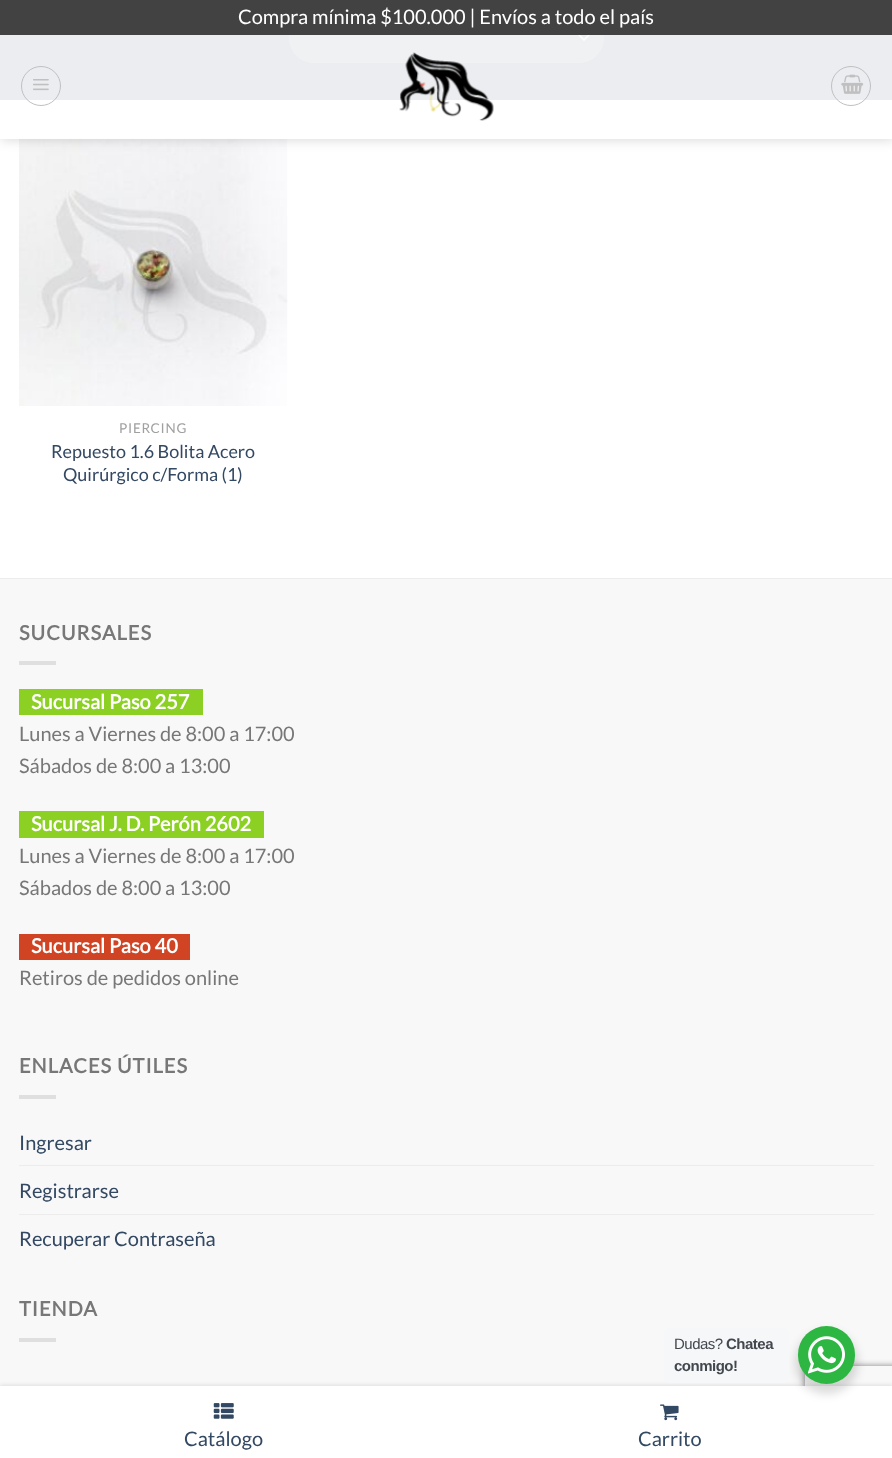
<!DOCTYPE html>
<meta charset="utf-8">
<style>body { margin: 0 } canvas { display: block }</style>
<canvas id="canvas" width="892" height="1458"></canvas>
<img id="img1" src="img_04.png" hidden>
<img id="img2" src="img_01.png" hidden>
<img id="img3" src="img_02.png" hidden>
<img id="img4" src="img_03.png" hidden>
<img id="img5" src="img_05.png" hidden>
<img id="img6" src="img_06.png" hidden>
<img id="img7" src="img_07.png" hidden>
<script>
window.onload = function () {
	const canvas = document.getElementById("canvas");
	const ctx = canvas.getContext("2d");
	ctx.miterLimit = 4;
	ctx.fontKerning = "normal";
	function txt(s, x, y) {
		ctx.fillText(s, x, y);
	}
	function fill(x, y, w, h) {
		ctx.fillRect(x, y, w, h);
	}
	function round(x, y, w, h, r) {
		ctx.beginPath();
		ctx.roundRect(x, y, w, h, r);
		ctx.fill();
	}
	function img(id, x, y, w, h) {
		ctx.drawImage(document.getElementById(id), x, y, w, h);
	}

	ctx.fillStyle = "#FFFFFF";
	fill(0, 0, 892, 1458);
	ctx.fillStyle = "#334863";
	fill(0, 35, 892, 65);
	ctx.fillStyle = "#5C6D82";
	round(289, 13, 315, 50, 25);
	ctx.beginPath();
	ctx.moveTo(579, 35);
	ctx.lineTo(584, 40);
	ctx.lineTo(589, 35);
	ctx.strokeStyle = "#FFFFFF";
	ctx.lineWidth = 1.7;
	ctx.lineCap = "round";
	ctx.lineJoin = "round";
	ctx.stroke();
	ctx.beginPath();
	ctx.roundRect(289.5, 13.5, 314, 49, 24.5);
	ctx.strokeStyle = "rgba(255, 255, 255, 0.09)";
	ctx.lineWidth = 1;
	ctx.lineJoin = "miter";
	ctx.stroke();
	img("img1", 19, 138, 269, 268);
	ctx.save();
	ctx.beginPath();
	ctx.moveTo(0, 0);
	ctx.lineTo(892, 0);
	ctx.lineTo(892, 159);
	ctx.lineTo(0, 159);
	ctx.closePath();
	ctx.moveTo(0, 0);
	ctx.lineTo(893, 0);
	ctx.lineTo(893, 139);
	ctx.lineTo(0, 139);
	ctx.closePath();
	ctx.clip("evenodd");
	ctx.fillStyle = "rgba(0, 0, 0, 0.15)";
	ctx.filter = "blur(6px)";
	ctx.beginPath();
	ctx.rect(1, 1, 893, 139);
	ctx.fill();
	ctx.filter = "none";
	ctx.restore();
	ctx.fillStyle = "#424242";
	fill(0, 0, 892, 35);
	ctx.fillStyle = "rgba(255, 255, 255, 0.9)";
	fill(0, 35, 892, 104);
	ctx.beginPath();
	ctx.arc(41, 86, 19.5, 0, Math.PI * 2);
	ctx.strokeStyle = "#C0C0C0";
	ctx.stroke();
	img("img2", 33, 79, 16, 12);
	img("img3", 399, 52, 95, 69);
	ctx.beginPath();
	ctx.arc(851, 86, 19.5, 0, Math.PI * 2);
	ctx.stroke();
	img("img4", 841, 74, 23, 20);
	ctx.fillStyle = "#F8F8F8";
	fill(0, 579, 892, 807);
	ctx.fillStyle = "#ECECEC";
	fill(0, 578, 892, 1);
	ctx.fillStyle = "#DFDFDF";
	fill(19, 661, 37, 4);
	ctx.fillStyle = "#8BD023";
	fill(19, 689, 184, 26);
	fill(19, 811, 245, 27);
	ctx.fillStyle = "#D04323";
	fill(19, 934, 171, 26);
	ctx.fillStyle = "#DFDFDF";
	fill(19, 1095, 37, 4);
	ctx.fillStyle = "#ECECEC";
	fill(19, 1165, 855, 1);
	fill(19, 1214, 855, 1);
	ctx.fillStyle = "#DFDFDF";
	fill(19, 1338, 37, 4);
	ctx.fillStyle = "rgba(0, 0, 0, 0.1)";
	ctx.filter = "blur(2px)";
	ctx.beginPath();
	ctx.rect(0, 1385, 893, 73);
	ctx.fill();
	ctx.filter = "none";
	ctx.save();
	ctx.beginPath();
	ctx.moveTo(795, 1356);
	ctx.lineTo(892, 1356);
	ctx.lineTo(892, 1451);
	ctx.lineTo(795, 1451);
	ctx.closePath();
	ctx.moveTo(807.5, 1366);
	ctx.lineTo(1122.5, 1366);
	ctx.bezierCurveTo(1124, 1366, 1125, 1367, 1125, 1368.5);
	ctx.lineTo(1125, 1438.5);
	ctx.bezierCurveTo(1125, 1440, 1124, 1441, 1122.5, 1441);
	ctx.lineTo(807.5, 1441);
	ctx.bezierCurveTo(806, 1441, 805, 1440, 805, 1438.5);
	ctx.lineTo(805, 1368.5);
	ctx.bezierCurveTo(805, 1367, 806, 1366, 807.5, 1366);
	ctx.closePath();
	ctx.clip("evenodd");
	ctx.fillStyle = "#808080";
	ctx.filter = "blur(3px)";
	ctx.beginPath();
	ctx.roundRect(805, 1366, 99, 75, 2.5);
	ctx.fill();
	ctx.filter = "none";
	ctx.restore();
	ctx.fillStyle = "#FFFFFF";
	fill(0, 1386, 892, 72);
	img("img5", 213, 1403, 21, 16);
	img("img6", 660, 1404, 19, 17);
	ctx.fillStyle = "rgba(0, 0, 0, 0.14)";
	ctx.filter = "blur(5px)";
	ctx.beginPath();
	ctx.roundRect(795, 1331, 63, 63, 31.5);
	ctx.fill();
	ctx.filter = "none";
	ctx.fillStyle = "#F5F7F9";
	round(664, 1328, 125, 55, 5);
	ctx.fillStyle = "#2DB742";
	round(798, 1326, 57, 58, 28.5);
	img("img7", 808, 1336, 37, 38);
	ctx.font = "20px Lato";
	ctx.fillStyle = "#FFFFFF";
	txt("Compra mínima $100.000 | Envíos a todo el país", 238, 24);
	ctx.letterSpacing = "0.75px";
	ctx.font = "13.5px Lato";
	ctx.fillStyle = "#A0A0A0";
	txt("PIERCING", 119, 433);
	ctx.letterSpacing = "0px";
	ctx.font = "18px Lato";
	ctx.fillStyle = "#334862";
	txt("Repuesto 1.6 Bolita Acero", 51, 458);
	txt("Quirúrgico c/Forma (1)", 63, 481);
	ctx.letterSpacing = "1px";
	ctx.font = "bold 20px Lato";
	ctx.fillStyle = "#777777";
	txt("SUCURSALES", 19, 640);
	ctx.letterSpacing = "0px";
	ctx.fillStyle = "#FFFFFF";
	txt("Sucursal Paso 257", 31, 709);
	ctx.font = "20px Lato";
	ctx.fillStyle = "#777777";
	txt("Lunes a Viernes de 8:00 a 17:00", 19, 741);
	txt("Sábados de 8:00 a 13:00", 19, 773);
	ctx.font = "bold 20px Lato";
	ctx.fillStyle = "#FFFFFF";
	txt("Sucursal J. D. Perón 2602", 31, 831);
	ctx.font = "20px Lato";
	ctx.fillStyle = "#777777";
	txt("Lunes a Viernes de 8:00 a 17:00", 19, 863);
	txt("Sábados de 8:00 a 13:00", 19, 895);
	ctx.font = "bold 20px Lato";
	ctx.fillStyle = "#FFFFFF";
	txt("Sucursal Paso 40", 31, 953);
	ctx.font = "20px Lato";
	ctx.fillStyle = "#777777";
	txt("Retiros de pedidos online", 19, 985);
	ctx.letterSpacing = "1px";
	ctx.font = "bold 20px Lato";
	txt("ENLACES ÚTILES", 19, 1073);
	ctx.letterSpacing = "0px";
	ctx.font = "20px Lato";
	ctx.fillStyle = "#334862";
	txt("Ingresar", 19, 1150);
	txt("Registrarse", 19, 1198);
	txt("Recuperar Contraseña", 19, 1246);
	ctx.letterSpacing = "1px";
	ctx.font = "bold 20px Lato";
	ctx.fillStyle = "#777777";
	txt("TIENDA", 19, 1316);
	ctx.letterSpacing = "0px";
	ctx.font = "20px Lato";
	ctx.fillStyle = "#334862";
	txt("Catálogo", 184, 1446);
	txt("Carrito", 638, 1446);
	ctx.letterSpacing = "-0.5px";
	ctx.font = "15px Liberation Sans";
	ctx.fillStyle = "#43474E";
	txt("Dudas?", 674, 1349);
	ctx.font = "bold 15px Liberation Sans";
	txt("Chatea", 726, 1349);
	txt("conmigo!", 674, 1371);
};
</script>
